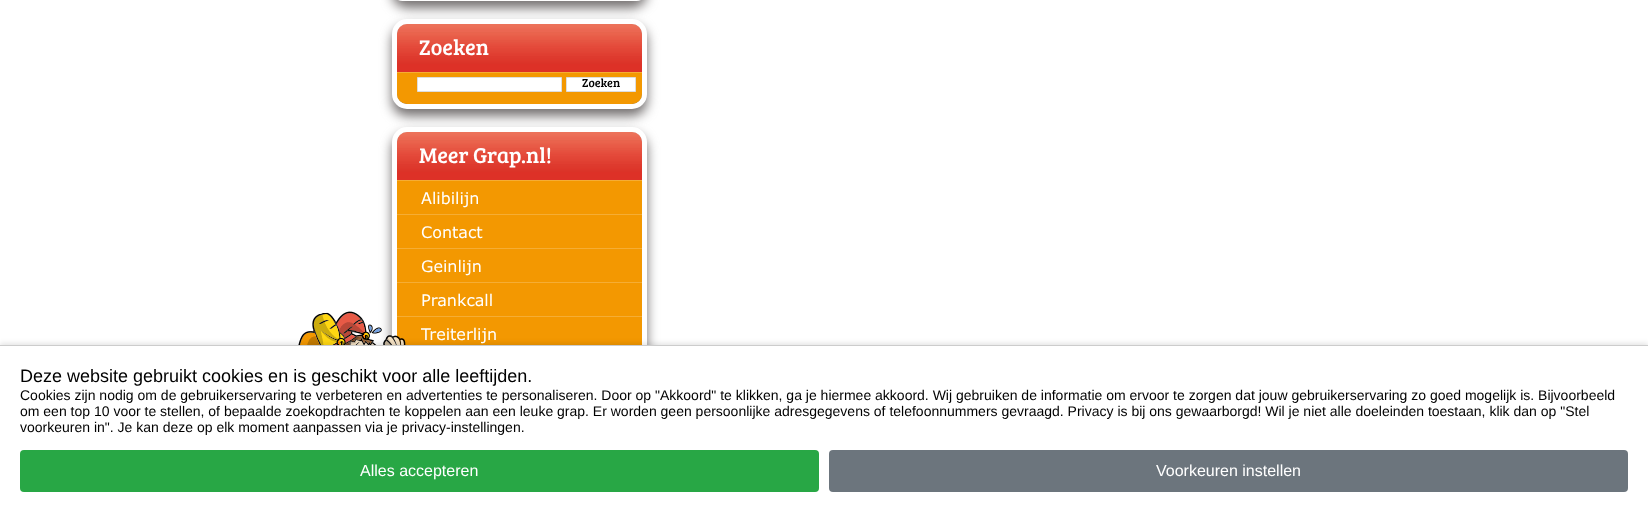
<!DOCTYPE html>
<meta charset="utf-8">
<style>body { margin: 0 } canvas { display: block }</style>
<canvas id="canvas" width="1648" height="512"></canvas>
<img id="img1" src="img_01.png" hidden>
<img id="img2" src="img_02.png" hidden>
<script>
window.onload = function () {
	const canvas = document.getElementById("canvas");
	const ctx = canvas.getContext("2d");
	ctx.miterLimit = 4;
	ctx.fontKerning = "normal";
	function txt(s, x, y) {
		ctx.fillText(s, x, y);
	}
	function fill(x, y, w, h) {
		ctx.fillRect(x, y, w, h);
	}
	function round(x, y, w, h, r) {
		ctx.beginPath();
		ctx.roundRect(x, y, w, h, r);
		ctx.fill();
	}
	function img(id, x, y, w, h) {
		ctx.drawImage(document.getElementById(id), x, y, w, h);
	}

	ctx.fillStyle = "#FFFFFF";
	fill(0, 0, 1648, 512);
	ctx.fillStyle = "#736F6F";
	ctx.filter = "blur(6px)";
	ctx.beginPath();
	ctx.roundRect(392, 134, 255, 262, 15);
	ctx.fill();
	ctx.filter = "none";
	ctx.filter = "blur(6px)";
	ctx.beginPath();
	ctx.roundRect(392, 26, 255, 90, 15);
	ctx.fill();
	ctx.filter = "none";
	ctx.beginPath();
	ctx.roundRect(394.5, 129.5, 250, 257, 12.5);
	ctx.strokeStyle = "#FFFFFF";
	ctx.lineWidth = 5;
	ctx.stroke();
	ctx.fillStyle = "#F39801";
	fill(397, 181, 245, 164);
	ctx.fillStyle = "#F5AD34";
	fill(397, 316, 245, 1);
	img("img1", 298, 311, 108, 34);
	ctx.fillStyle = "#736F6F";
	ctx.filter = "blur(6px)";
	ctx.beginPath();
	ctx.roundRect(392, -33, 255, 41, 15);
	ctx.fill();
	ctx.filter = "none";
	ctx.beginPath();
	ctx.roundRect(394.5, -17.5, 250, 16, 12.5);
	ctx.stroke();
	ctx.beginPath();
	ctx.roundRect(394.5, 21.5, 250, 85, 12.5);
	ctx.stroke();
	img("img2", 397, 24, 245, 48);
	ctx.fillStyle = "#F39801";
	ctx.beginPath();
	ctx.roundRect(397, 72, 245, 32, [0, 0, 10, 10]);
	ctx.fill();
	ctx.fillStyle = "#F5AD34";
	fill(397, 72, 245, 1);
	ctx.fillStyle = "#FFFFFF";
	ctx.beginPath();
	ctx.rect(417.5, 77.5, 144, 14);
	ctx.fill();
	ctx.strokeStyle = "#DDDDDD";
	ctx.lineWidth = 1;
	ctx.stroke();
	ctx.beginPath();
	ctx.rect(566.5, 77.5, 69, 14);
	ctx.fill();
	ctx.stroke();
	img("img2", 397, 132, 245, 48);
	ctx.fillStyle = "#F5AD34";
	fill(397, 180, 245, 1);
	fill(397, 214, 245, 1);
	fill(397, 248, 245, 1);
	fill(397, 282, 245, 1);
	ctx.fillStyle = "rgba(0, 0, 0, 0.1)";
	ctx.filter = "blur(2.5px)";
	ctx.beginPath();
	ctx.rect(0, 343, 1648, 167);
	ctx.fill();
	ctx.filter = "none";
	ctx.fillStyle = "#FFFFFF";
	fill(0, 346, 1648, 166);
	ctx.fillStyle = "#CCCCCC";
	fill(0, 345, 1648, 1);
	ctx.fillStyle = "#28A745";
	round(20, 450, 799, 42, 4);
	ctx.fillStyle = "#6C757D";
	round(829, 450, 799, 42, 4);
	ctx.font = "22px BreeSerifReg";
	ctx.fillStyle = "#FFFFFF";
	txt("Zoeken", 419, 55);
	ctx.font = "12px BreeSerifReg";
	ctx.fillStyle = "#000000";
	txt("Zoeken", 582, 87);
	ctx.font = "22px BreeSerifReg";
	ctx.fillStyle = "#FFFFFF";
	txt("Meer Grap.nl!", 419, 163);
	ctx.font = "16px Verdana";
	txt("Alibilijn", 421, 204);
	txt("Contact", 421, 238);
	txt("Geinlijn", 421, 272);
	txt("Prankcall", 421, 306);
	txt("Treiterlijn", 421, 340);
	ctx.font = "18px Liberation Sans";
	ctx.fillStyle = "#000000";
	txt("Deze website gebruikt cookies en is geschikt voor alle leeftijden.", 20, 382);
	ctx.font = "14px Liberation Sans";
	txt("Cookies zijn nodig om de gebruikerservaring te verbeteren en advertenties te personaliseren. Door op \"Akkoord\" te klikken, ga je hiermee akkoord. Wij gebruiken de informatie om ervoor te zorgen dat jouw gebruikerservaring zo goed mogelijk is. Bijvoorbeeld", 20, 400);
	txt("om een top 10 voor te stellen, of bepaalde zoekopdrachten te koppelen aan een leuke grap. Er worden geen persoonlijke adresgegevens of telefoonnummers gevraagd. Privacy is bij ons gewaarborgd! Wil je niet alle doeleinden toestaan, klik dan op \"Stel", 20, 416);
	txt("voorkeuren in\". Je kan deze op elk moment aanpassen via je privacy-instellingen.", 20, 432);
	ctx.font = "16px Liberation Sans";
	ctx.fillStyle = "#FFFFFF";
	txt("Alles accepteren", 360, 476);
	txt("Voorkeuren instellen", 1156, 476);
};
</script>
